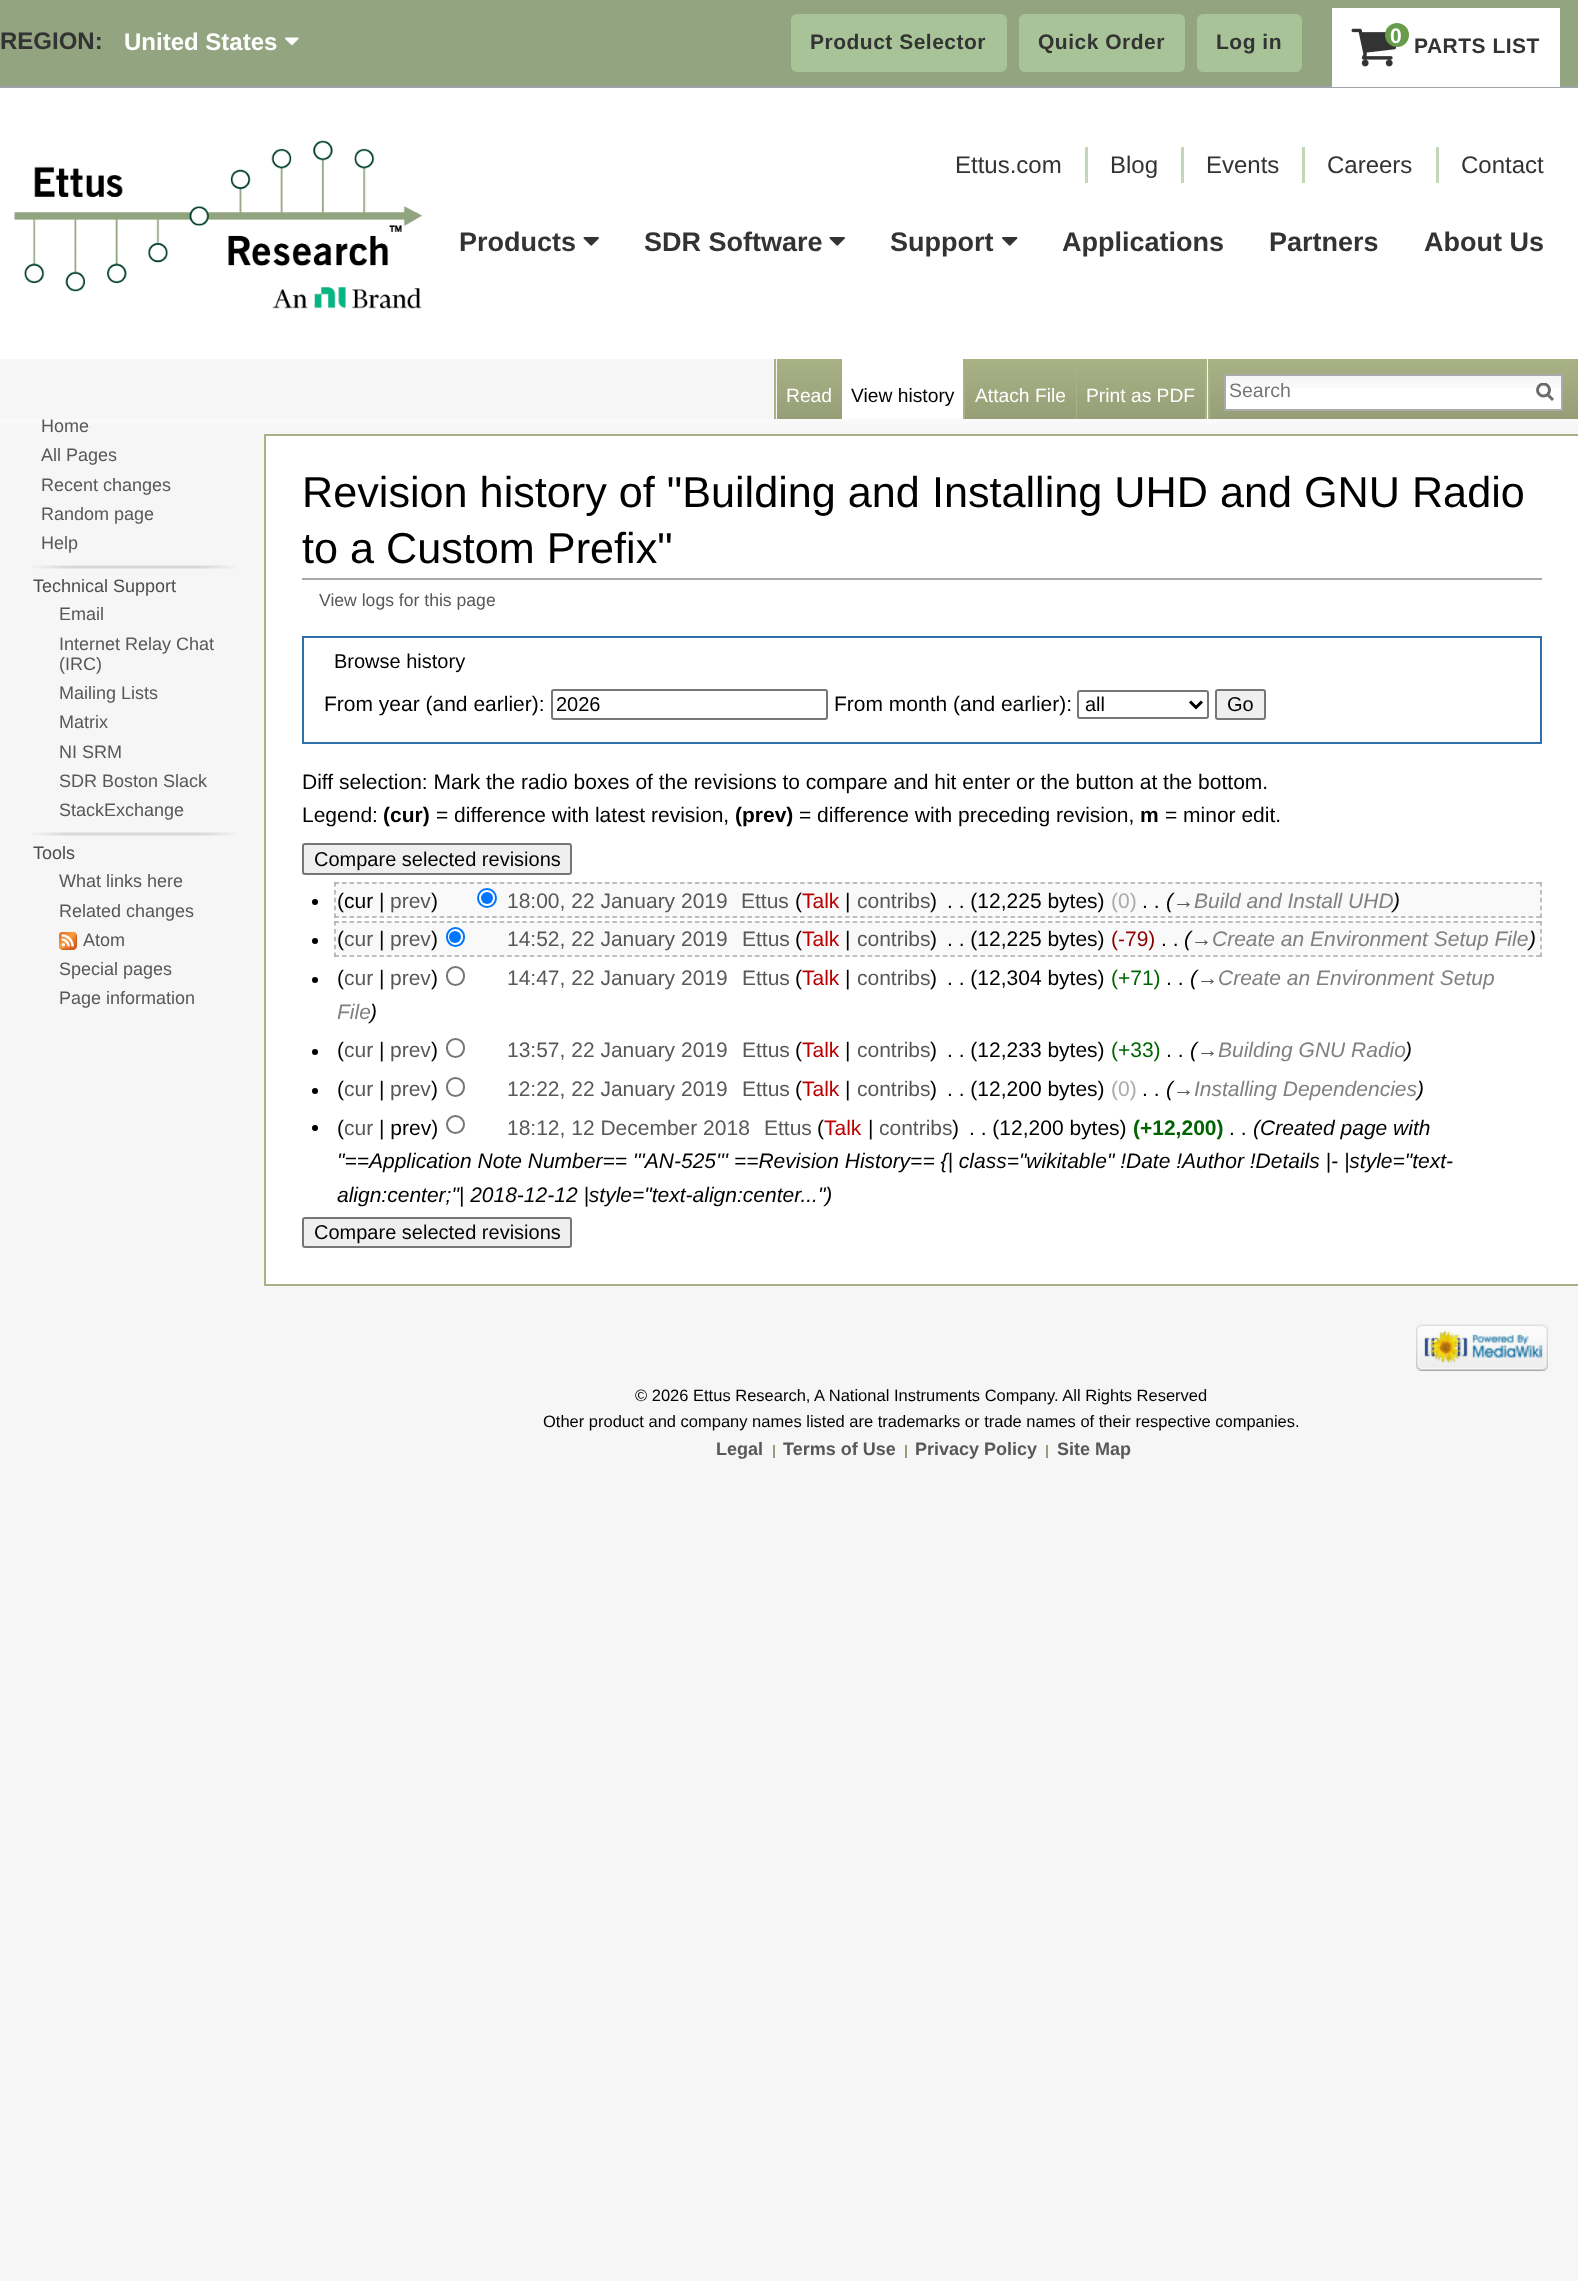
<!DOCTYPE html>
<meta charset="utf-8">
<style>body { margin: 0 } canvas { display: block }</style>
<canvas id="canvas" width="1578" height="2281"></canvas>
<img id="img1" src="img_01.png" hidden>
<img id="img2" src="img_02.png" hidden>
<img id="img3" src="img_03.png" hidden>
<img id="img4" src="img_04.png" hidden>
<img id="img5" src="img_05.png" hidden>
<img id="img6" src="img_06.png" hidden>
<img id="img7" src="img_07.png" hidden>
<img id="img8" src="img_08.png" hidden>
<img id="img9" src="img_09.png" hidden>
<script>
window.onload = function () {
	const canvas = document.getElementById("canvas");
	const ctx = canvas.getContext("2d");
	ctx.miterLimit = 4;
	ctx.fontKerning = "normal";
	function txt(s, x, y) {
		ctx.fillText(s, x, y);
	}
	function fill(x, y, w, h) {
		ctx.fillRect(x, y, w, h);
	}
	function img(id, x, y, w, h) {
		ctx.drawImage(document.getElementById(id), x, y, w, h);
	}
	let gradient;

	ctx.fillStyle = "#F6F6F6";
	fill(0, 0, 1578, 2281);
	ctx.fillStyle = "#FFFFFF";
	fill(0, 88, 1578, 271);
	ctx.fillStyle = "#92A580";
	fill(0, 0, 1578, 86);
	ctx.fillStyle = "#9EA3A8";
	fill(0, 86, 1578, 2);
	img("img1", 285, 37, 14, 9);
	ctx.fillStyle = "#A9C398";
	ctx.beginPath();
	ctx.roundRect(792, 15, 214, 56, 5);
	ctx.fill();
	ctx.strokeStyle = "#A9C398";
	ctx.lineWidth = 2;
	ctx.stroke();
	ctx.beginPath();
	ctx.roundRect(1020, 15, 164, 56, 5);
	ctx.fill();
	ctx.stroke();
	ctx.beginPath();
	ctx.roundRect(1198, 15, 103, 56, 5);
	ctx.fill();
	ctx.stroke();
	ctx.fillStyle = "#FFFFFF";
	fill(1332, 8, 228, 79);
	img("img2", 1351, 28, 46, 39);
	ctx.fillStyle = "#679C4B";
	ctx.beginPath();
	ctx.arc(1397, 35, 12, 0, Math.PI * 2);
	ctx.fill();
	img("img3", 14, 140, 409, 169);
	ctx.fillStyle = "#C4D6B8";
	fill(1085, 147, 3, 36);
	fill(1181, 147, 3, 36);
	fill(1302, 147, 3, 36);
	fill(1436, 147, 3, 36);
	img("img4", 583, 237, 16, 9);
	img("img4", 829, 237, 16, 9);
	img("img5", 1002, 237, 16, 9);
	ctx.fillStyle = "#A9B285";
	fill(774, 359, 2, 60);
	gradient = ctx.createLinearGradient(810, 359, 810, 419);
	gradient.addColorStop(0, "#A9B285");
	gradient.addColorStop(1, "#969E77");
	ctx.fillStyle = gradient;
	fill(777, 359, 65, 60);
	ctx.fillStyle = "#FFFFFF";
	fill(842, 359, 121, 60);
	ctx.fillStyle = "#A9B285";
	fill(963, 359, 2, 60);
	gradient = ctx.createLinearGradient(1021, 359, 1021, 419);
	gradient.addColorStop(0, "#A9B285");
	gradient.addColorStop(1, "#969E77");
	ctx.fillStyle = gradient;
	fill(965, 359, 111, 60);
	ctx.fillStyle = "#A9B285";
	fill(1076, 359, 1, 60);
	gradient = ctx.createLinearGradient(1142, 359, 1142, 419);
	gradient.addColorStop(0, "#A9B285");
	gradient.addColorStop(1, "#969E77");
	ctx.fillStyle = gradient;
	fill(1077, 359, 128, 60);
	ctx.fillStyle = "#A9B285";
	fill(1205, 359, 2, 60);
	gradient = ctx.createLinearGradient(1394, 359, 1394, 419);
	gradient.addColorStop(0, "#A9B285");
	gradient.addColorStop(1, "#969E77");
	ctx.fillStyle = gradient;
	fill(1210, 359, 368, 60);
	ctx.fillStyle = "#A9B285";
	fill(1208, 359, 2, 60);
	ctx.fillStyle = "#FFFFFF";
	fill(1226, 388, 335, 21);
	img("img6", 1226, 376, 335, 12);
	ctx.strokeStyle = "#AAAAAA";
	ctx.strokeRect(1225, 375, 337, 35);
	ctx.beginPath();
	ctx.moveTo(1553, 400);
	ctx.lineTo(1547, 394);
	ctx.strokeStyle = "#6C6C6C";
	ctx.lineWidth = 3;
	ctx.stroke();
	ctx.save();
	ctx.beginPath();
	ctx.rect(1536, 383, 18, 19);
	ctx.clip();
	ctx.beginPath();
	ctx.arc(1543.5, 390, 6, 0, Math.PI * 2);
	ctx.stroke();
	ctx.restore();
	img("img7", 32, 565, 204, 4);
	img("img7", 32, 832, 204, 4);
	img("img8", 59, 932, 18, 18);
	gradient = ctx.createLinearGradient(789, 366, 789, 435);
	gradient.addColorStop(0.5, "#FFFFFF");
	gradient.addColorStop(1, "#F6F6F6");
	ctx.fillStyle = gradient;
	fill(0, 419, 1578, 6);
	ctx.fillStyle = "#FFFFFF";
	fill(266, 436, 1312, 848);
	ctx.fillStyle = "#A9B285";
	fill(264, 434, 1314, 2);
	fill(264, 1284, 1314, 2);
	fill(264, 434, 2, 852);
	ctx.fillStyle = "#AAAAAA";
	fill(302, 578, 1240, 2);
	ctx.strokeStyle = "#2F6FAB";
	ctx.lineWidth = 2;
	ctx.strokeRect(303, 637, 1238, 106);
	ctx.beginPath();
	ctx.roundRect(552, 690, 275, 29, 2);
	ctx.strokeStyle = "#767676";
	ctx.stroke();
	ctx.beginPath();
	ctx.roundRect(1078, 691, 130, 27, 2);
	ctx.stroke();
	ctx.beginPath();
	ctx.moveTo(1190, 701.5);
	ctx.lineTo(1196, 707.5);
	ctx.lineTo(1202, 701.5);
	ctx.strokeStyle = "#000000";
	ctx.lineWidth = 3;
	ctx.stroke();
	ctx.fillStyle = "#EFEFEF";
	ctx.beginPath();
	ctx.roundRect(1216, 690, 49, 29, 2);
	ctx.fill();
	ctx.strokeStyle = "#767676";
	ctx.lineWidth = 2;
	ctx.stroke();
	ctx.beginPath();
	ctx.roundRect(303, 844, 268, 30, 2);
	ctx.fill();
	ctx.stroke();
	ctx.fillStyle = "#F9F9F9";
	fill(335, 882, 1207, 36);
	ctx.beginPath();
	ctx.moveTo(334.5, 883);
	ctx.lineTo(1542, 883);
	ctx.strokeStyle = "#AAAAAA";
	ctx.lineWidth = 1.5;
	ctx.setLineDash([4.5, 3.01]);
	ctx.stroke();
	ctx.beginPath();
	ctx.moveTo(1541, 882);
	ctx.lineTo(1541, 918);
	ctx.setLineDash([4.5, 3.38]);
	ctx.stroke();
	ctx.beginPath();
	ctx.moveTo(334.5, 917);
	ctx.lineTo(1542, 917);
	ctx.setLineDash([4.5, 3.01]);
	ctx.stroke();
	ctx.beginPath();
	ctx.moveTo(335, 882);
	ctx.lineTo(335, 918);
	ctx.setLineDash([4.5, 3.38]);
	ctx.stroke();
	ctx.fillStyle = "#000000";
	ctx.beginPath();
	ctx.arc(315, 902, 3, 0, Math.PI * 2);
	ctx.fill();
	ctx.fillStyle = "#FFFFFF";
	ctx.beginPath();
	ctx.arc(487, 898, 9, 0, Math.PI * 2);
	ctx.fill();
	ctx.strokeStyle = "#0075FF";
	ctx.lineWidth = 2;
	ctx.setLineDash([]);
	ctx.stroke();
	ctx.fillStyle = "#0075FF";
	ctx.beginPath();
	ctx.arc(487, 898, 6, 0, Math.PI * 2);
	ctx.fill();
	ctx.fillStyle = "#F9F9F9";
	fill(335, 921, 1207, 36);
	ctx.beginPath();
	ctx.moveTo(334.5, 922);
	ctx.lineTo(1542, 922);
	ctx.strokeStyle = "#AAAAAA";
	ctx.lineWidth = 1.5;
	ctx.setLineDash([4.5, 3.01]);
	ctx.stroke();
	ctx.beginPath();
	ctx.moveTo(1541, 921);
	ctx.lineTo(1541, 957);
	ctx.setLineDash([4.5, 3.38]);
	ctx.stroke();
	ctx.beginPath();
	ctx.moveTo(334.5, 956);
	ctx.lineTo(1542, 956);
	ctx.setLineDash([4.5, 3.01]);
	ctx.stroke();
	ctx.beginPath();
	ctx.moveTo(335, 921);
	ctx.lineTo(335, 957);
	ctx.setLineDash([4.5, 3.38]);
	ctx.stroke();
	ctx.fillStyle = "#000000";
	ctx.beginPath();
	ctx.arc(315, 941, 3, 0, Math.PI * 2);
	ctx.fill();
	ctx.fillStyle = "#FFFFFF";
	ctx.beginPath();
	ctx.roundRect(447, 928, 17, 18, 8.5);
	ctx.fill();
	ctx.strokeStyle = "#0075FF";
	ctx.lineWidth = 2;
	ctx.setLineDash([]);
	ctx.stroke();
	ctx.fillStyle = "#0075FF";
	ctx.beginPath();
	ctx.arc(455, 937, 6, 0, Math.PI * 2);
	ctx.fill();
	ctx.fillStyle = "#000000";
	ctx.beginPath();
	ctx.arc(315, 980, 3, 0, Math.PI * 2);
	ctx.fill();
	ctx.beginPath();
	ctx.roundRect(447, 967, 17, 18, 8.5);
	ctx.strokeStyle = "#767676";
	ctx.stroke();
	ctx.beginPath();
	ctx.arc(315, 1052, 3, 0, Math.PI * 2);
	ctx.fill();
	ctx.beginPath();
	ctx.roundRect(447, 1039, 17, 18, 8.5);
	ctx.stroke();
	ctx.beginPath();
	ctx.arc(315, 1091, 3, 0, Math.PI * 2);
	ctx.fill();
	ctx.beginPath();
	ctx.roundRect(447, 1078, 17, 18, 8.5);
	ctx.stroke();
	ctx.beginPath();
	ctx.arc(315, 1128, 3, 0, Math.PI * 2);
	ctx.fill();
	ctx.beginPath();
	ctx.arc(455.5, 1124.5, 8.5, 0, Math.PI * 2);
	ctx.stroke();
	ctx.fillStyle = "#EFEFEF";
	ctx.beginPath();
	ctx.roundRect(303, 1218, 268, 29, 2);
	ctx.fill();
	ctx.stroke();
	img("img9", 1416, 1324, 132, 47);
	ctx.fillStyle = "#969E77";
	fill(773, 1445, 2, 13);
	fill(905, 1445, 2, 13);
	fill(1046, 1445, 2, 13);
	ctx.font = "bold 24px Liberation Sans";
	ctx.fillStyle = "#333333";
	txt("REGION:", 0, 49);
	ctx.fillStyle = "#FFFFFF";
	txt("United States", 124, 50);
	ctx.letterSpacing = "0.5px";
	ctx.font = "bold 21px Liberation Sans";
	ctx.fillStyle = "#333333";
	txt("Product Selector", 810, 49);
	txt("Quick Order", 1038, 49);
	txt("Log in", 1216, 49);
	ctx.fillStyle = "#FFFFFF";
	txt("0", 1390, 43);
	ctx.fillStyle = "#333333";
	txt("PARTS LIST", 1414, 53);
	ctx.letterSpacing = "0px";
	ctx.font = "24px Liberation Sans";
	txt("Ettus.com", 955, 173);
	txt("Blog", 1110, 173);
	txt("Events", 1206, 173);
	txt("Careers", 1327, 173);
	txt("Contact", 1461, 173);
	ctx.font = "bold 27px Liberation Sans";
	txt("Products", 459, 251);
	txt("SDR Software", 644, 251);
	txt("Support", 890, 251);
	txt("Applications", 1062, 251);
	txt("Partners", 1269, 251);
	txt("About Us", 1424, 251);
	ctx.font = "19.25px Liberation Sans";
	ctx.fillStyle = "#FFFFFF";
	txt("Read", 786, 402);
	ctx.fillStyle = "#000000";
	txt("View history", 851, 402);
	ctx.fillStyle = "#FFFFFF";
	txt("Attach File", 975, 402);
	txt("Print as PDF", 1086, 402);
	ctx.font = "19.5px Liberation Sans";
	ctx.fillStyle = "#757575";
	txt("Search", 1229, 397);
	ctx.font = "18px Liberation Sans";
	ctx.fillStyle = "#585858";
	txt("Home", 41, 432);
	txt("All Pages", 41, 461);
	txt("Recent changes", 41, 491);
	txt("Random page", 41, 520);
	txt("Help", 41, 549);
	ctx.fillStyle = "#4D4D4D";
	txt("Technical Support", 33, 592);
	ctx.fillStyle = "#585858";
	txt("Email", 59, 620);
	txt("Internet Relay Chat", 59, 650);
	txt("(IRC)", 59, 670);
	txt("Mailing Lists", 59, 699);
	txt("Matrix", 59, 728);
	txt("NI SRM", 59, 758);
	txt("SDR Boston Slack", 59, 787);
	txt("StackExchange", 59, 816);
	ctx.fillStyle = "#4D4D4D";
	txt("Tools", 33, 859);
	ctx.fillStyle = "#585858";
	txt("What links here", 59, 887);
	txt("Related changes", 59, 917);
	txt("Atom", 83, 946);
	txt("Special pages", 59, 975);
	txt("Page information", 59, 1004);
	ctx.font = "43.2px Liberation Sans";
	ctx.fillStyle = "#000000";
	txt("Revision history of \"Building and Installing UHD and GNU Radio", 302, 507);
	txt("to a Custom Prefix\"", 302, 563);
	ctx.font = "17.6px Liberation Sans";
	ctx.fillStyle = "#585858";
	txt("View logs for this page", 319, 606);
	ctx.font = "20px Liberation Sans";
	ctx.fillStyle = "#000000";
	txt("Browse history", 334, 668);
	ctx.font = "21px Liberation Sans";
	txt("From year (and earlier):", 324, 711);
	ctx.font = "20px Liberation Sans";
	txt("2026", 556, 711);
	ctx.font = "21px Liberation Sans";
	txt("From month (and earlier):", 834, 711);
	ctx.font = "20px Liberation Sans";
	txt("all", 1085, 711);
	txt("Go", 1227, 711);
	ctx.font = "21px Liberation Sans";
	txt("Diff selection: Mark the radio boxes of the revisions to compare and hit enter or the button at the bottom.", 302, 789);
	txt("Legend:", 302, 822);
	ctx.font = "bold 21px Liberation Sans";
	txt("(cur)", 383, 822);
	ctx.font = "21px Liberation Sans";
	txt("= difference with latest revision,", 436, 822);
	ctx.font = "bold 21px Liberation Sans";
	txt("(prev)", 735, 822);
	ctx.font = "21px Liberation Sans";
	txt("= difference with preceding revision,", 799, 822);
	ctx.font = "bold 21px Liberation Sans";
	txt("m", 1140, 822);
	ctx.font = "21px Liberation Sans";
	txt("= minor edit.", 1165, 822);
	ctx.font = "20px Liberation Sans";
	txt("Compare selected revisions", 314, 866);
	ctx.font = "21px Liberation Sans";
	txt("(cur |", 337, 908);
	ctx.fillStyle = "#585858";
	txt("prev", 390, 908);
	ctx.fillStyle = "#000000";
	txt(")", 431, 908);
	ctx.fillStyle = "#585858";
	txt("18:00, 22 January 2019", 507, 908);
	txt("Ettus", 741, 908);
	ctx.fillStyle = "#000000";
	txt("(", 795, 908);
	ctx.fillStyle = "#BA0000";
	txt("Talk", 802, 908);
	ctx.fillStyle = "#000000";
	txt("|", 845, 908);
	ctx.fillStyle = "#585858";
	txt("contribs", 857, 908);
	ctx.fillStyle = "#000000";
	txt(")", 930, 908);
	txt(". . (12,225 bytes)", 947, 908);
	ctx.fillStyle = "#AAAAAA";
	txt("(0)", 1111, 908);
	ctx.fillStyle = "#000000";
	txt(". .", 1142, 908);
	ctx.font = "italic 21px Liberation Sans";
	txt("(", 1166, 908);
	ctx.fillStyle = "#585858";
	txt("→", 1173, 908);
	ctx.fillStyle = "#808080";
	txt("Build and Install UHD", 1194, 908);
	ctx.fillStyle = "#000000";
	txt(")", 1393, 908);
	ctx.font = "21px Liberation Sans";
	txt("(", 337, 946);
	ctx.fillStyle = "#585858";
	txt("cur", 344, 946);
	ctx.fillStyle = "#000000";
	txt("|", 379, 946);
	ctx.fillStyle = "#585858";
	txt("prev", 390, 946);
	ctx.fillStyle = "#000000";
	txt(")", 431, 946);
	ctx.fillStyle = "#585858";
	txt("14:52, 22 January 2019", 507, 946);
	txt("Ettus", 742, 946);
	ctx.fillStyle = "#000000";
	txt("(", 795, 946);
	ctx.fillStyle = "#BA0000";
	txt("Talk", 802, 946);
	ctx.fillStyle = "#000000";
	txt("|", 845, 946);
	ctx.fillStyle = "#585858";
	txt("contribs", 857, 946);
	ctx.fillStyle = "#000000";
	txt(")", 930, 946);
	txt(". . (12,225 bytes)", 947, 946);
	ctx.fillStyle = "#8B0000";
	txt("(-79)", 1111, 946);
	ctx.fillStyle = "#000000";
	txt(". .", 1161, 946);
	ctx.font = "italic 21px Liberation Sans";
	txt("(", 1184, 946);
	ctx.fillStyle = "#585858";
	txt("→", 1191, 946);
	ctx.fillStyle = "#808080";
	txt("Create an Environment Setup File", 1212, 946);
	ctx.fillStyle = "#000000";
	txt(")", 1529, 946);
	ctx.font = "21px Liberation Sans";
	txt("(", 337, 985);
	ctx.fillStyle = "#585858";
	txt("cur", 344, 985);
	ctx.fillStyle = "#000000";
	txt("|", 379, 985);
	ctx.fillStyle = "#585858";
	txt("prev", 390, 985);
	ctx.fillStyle = "#000000";
	txt(")", 431, 985);
	ctx.fillStyle = "#585858";
	txt("14:47, 22 January 2019", 507, 985);
	txt("Ettus", 742, 985);
	ctx.fillStyle = "#000000";
	txt("(", 795, 985);
	ctx.fillStyle = "#BA0000";
	txt("Talk", 802, 985);
	ctx.fillStyle = "#000000";
	txt("|", 845, 985);
	ctx.fillStyle = "#585858";
	txt("contribs", 857, 985);
	ctx.fillStyle = "#000000";
	txt(")", 930, 985);
	txt(". . (12,304 bytes)", 947, 985);
	ctx.fillStyle = "#006400";
	txt("(+71)", 1111, 985);
	ctx.fillStyle = "#000000";
	txt(". .", 1166, 985);
	ctx.font = "italic 21px Liberation Sans";
	txt("(", 1190, 985);
	ctx.fillStyle = "#585858";
	txt("→", 1197, 985);
	ctx.fillStyle = "#808080";
	txt("Create an Environment Setup", 1218, 985);
	txt("File", 337, 1019);
	ctx.fillStyle = "#000000";
	txt(")", 370, 1019);
	ctx.font = "21px Liberation Sans";
	txt("(", 337, 1057);
	ctx.fillStyle = "#585858";
	txt("cur", 344, 1057);
	ctx.fillStyle = "#000000";
	txt("|", 379, 1057);
	ctx.fillStyle = "#585858";
	txt("prev", 390, 1057);
	ctx.fillStyle = "#000000";
	txt(")", 431, 1057);
	ctx.fillStyle = "#585858";
	txt("13:57, 22 January 2019", 507, 1057);
	txt("Ettus", 742, 1057);
	ctx.fillStyle = "#000000";
	txt("(", 795, 1057);
	ctx.fillStyle = "#BA0000";
	txt("Talk", 802, 1057);
	ctx.fillStyle = "#000000";
	txt("|", 845, 1057);
	ctx.fillStyle = "#585858";
	txt("contribs", 857, 1057);
	ctx.fillStyle = "#000000";
	txt(")", 930, 1057);
	txt(". . (12,233 bytes)", 947, 1057);
	ctx.fillStyle = "#006400";
	txt("(+33)", 1111, 1057);
	ctx.fillStyle = "#000000";
	txt(". .", 1166, 1057);
	ctx.font = "italic 21px Liberation Sans";
	txt("(", 1190, 1057);
	ctx.fillStyle = "#585858";
	txt("→", 1197, 1057);
	ctx.fillStyle = "#808080";
	txt("Building GNU Radio", 1218, 1057);
	ctx.fillStyle = "#000000";
	txt(")", 1405, 1057);
	ctx.font = "21px Liberation Sans";
	txt("(", 337, 1096);
	ctx.fillStyle = "#585858";
	txt("cur", 344, 1096);
	ctx.fillStyle = "#000000";
	txt("|", 379, 1096);
	ctx.fillStyle = "#585858";
	txt("prev", 390, 1096);
	ctx.fillStyle = "#000000";
	txt(")", 431, 1096);
	ctx.fillStyle = "#585858";
	txt("12:22, 22 January 2019", 507, 1096);
	txt("Ettus", 742, 1096);
	ctx.fillStyle = "#000000";
	txt("(", 795, 1096);
	ctx.fillStyle = "#BA0000";
	txt("Talk", 802, 1096);
	ctx.fillStyle = "#000000";
	txt("|", 845, 1096);
	ctx.fillStyle = "#585858";
	txt("contribs", 857, 1096);
	ctx.fillStyle = "#000000";
	txt(")", 930, 1096);
	txt(". . (12,200 bytes)", 947, 1096);
	ctx.fillStyle = "#AAAAAA";
	txt("(0)", 1111, 1096);
	ctx.fillStyle = "#000000";
	txt(". .", 1142, 1096);
	ctx.font = "italic 21px Liberation Sans";
	txt("(", 1166, 1096);
	ctx.fillStyle = "#585858";
	txt("→", 1173, 1096);
	ctx.fillStyle = "#808080";
	txt("Installing Dependencies", 1194, 1096);
	ctx.fillStyle = "#000000";
	txt(")", 1417, 1096);
	ctx.font = "21px Liberation Sans";
	txt("(", 337, 1135);
	ctx.fillStyle = "#585858";
	txt("cur", 344, 1135);
	ctx.fillStyle = "#000000";
	txt("| prev)", 379, 1135);
	ctx.fillStyle = "#585858";
	txt("18:12, 12 December 2018", 507, 1135);
	txt("Ettus", 764, 1135);
	ctx.fillStyle = "#000000";
	txt("(", 817, 1135);
	ctx.fillStyle = "#BA0000";
	txt("Talk", 824, 1135);
	ctx.fillStyle = "#000000";
	txt("|", 868, 1135);
	ctx.fillStyle = "#585858";
	txt("contribs", 879, 1135);
	ctx.fillStyle = "#000000";
	txt(")", 952, 1135);
	txt(". . (12,200 bytes)", 969, 1135);
	ctx.font = "bold 21px Liberation Sans";
	ctx.fillStyle = "#006400";
	txt("(+12,200)", 1133, 1135);
	ctx.font = "italic 21px Liberation Sans";
	ctx.fillStyle = "#000000";
	txt("(Created page with", 1253, 1135);
	ctx.font = "21px Liberation Sans";
	txt(". .", 1229, 1135);
	ctx.font = "italic 21px Liberation Sans";
	txt("\"==Application Note Number== '''AN-525''' ==Revision History== {| class=\"wikitable\" !Date !Author !Details |- |style=\"text-", 337, 1168);
	txt("align:center;\"| 2018-12-12 |style=\"text-align:center...\")", 337, 1202);
	ctx.font = "20px Liberation Sans";
	txt("Compare selected revisions", 314, 1239);
	ctx.font = "16.5px Liberation Sans";
	txt("© 2026 Ettus Research, A National Instruments Company. All Rights Reserved", 635, 1401);
	txt("Other product and company names listed are trademarks or trade names of their respective companies.", 543, 1427);
	ctx.font = "bold 18px Liberation Sans";
	ctx.fillStyle = "#585858";
	txt("Legal", 716, 1455);
	txt("Terms of Use", 783, 1455);
	txt("Privacy Policy", 915, 1455);
	txt("Site Map", 1057, 1455);
};
</script>
